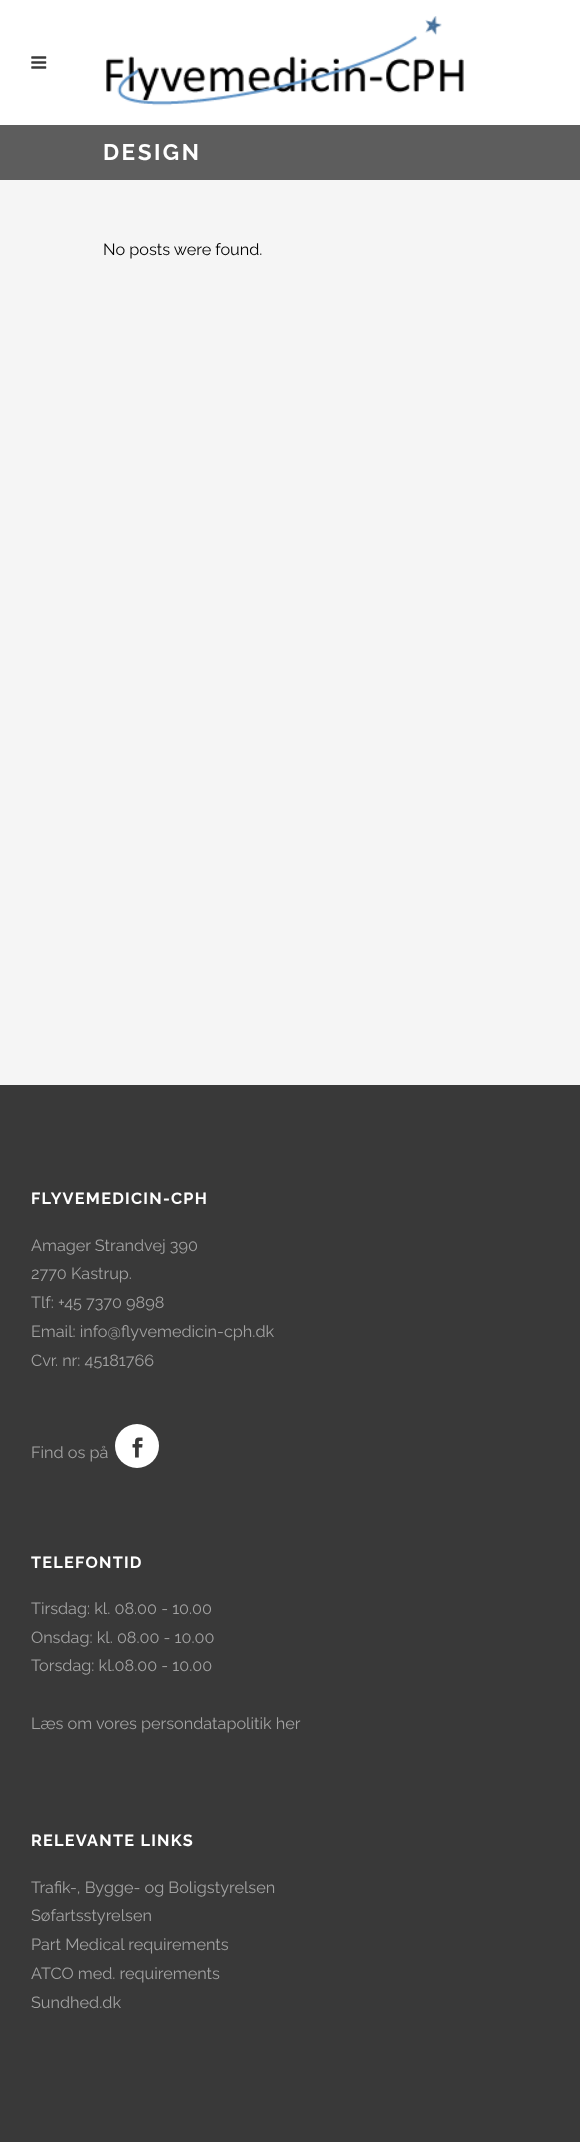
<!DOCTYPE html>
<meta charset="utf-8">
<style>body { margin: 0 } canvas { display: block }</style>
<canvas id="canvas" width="580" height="2142"></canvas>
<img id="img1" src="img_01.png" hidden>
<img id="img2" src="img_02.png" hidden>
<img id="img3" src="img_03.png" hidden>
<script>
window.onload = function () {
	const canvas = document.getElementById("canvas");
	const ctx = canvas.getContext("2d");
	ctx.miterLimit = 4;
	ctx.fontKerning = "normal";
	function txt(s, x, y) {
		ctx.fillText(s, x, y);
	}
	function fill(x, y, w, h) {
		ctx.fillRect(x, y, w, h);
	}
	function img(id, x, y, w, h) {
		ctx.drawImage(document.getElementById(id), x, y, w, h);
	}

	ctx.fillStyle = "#F5F5F5";
	fill(0, 0, 580, 2142);
	ctx.fillStyle = "#FFFFFF";
	fill(0, 0, 580, 125);
	img("img1", 31, 56, 16, 13);
	img("img2", 106, 16, 358, 90);
	ctx.fillStyle = "#5D5D5D";
	fill(0, 125, 580, 55);
	ctx.fillStyle = "#393939";
	fill(0, 1085, 580, 1057);
	ctx.fillStyle = "#FFFFFF";
	ctx.beginPath();
	ctx.arc(137, 1446, 22, 0, Math.PI * 2);
	ctx.fill();
	img("img3", 132, 1437, 11, 21);
	ctx.letterSpacing = "2.5px";
	ctx.font = "bold 22.5px Raleway";
	txt("DESIGN", 103, 160);
	ctx.letterSpacing = "0px";
	ctx.font = "16.25px Raleway";
	ctx.fillStyle = "#000000";
	txt("No posts were found.", 103, 255);
	ctx.letterSpacing = "1.25px";
	ctx.font = "bold 16.25px Raleway";
	ctx.fillStyle = "#FFFFFF";
	txt("FLYVEMEDICIN-CPH", 31, 1204);
	ctx.letterSpacing = "0px";
	ctx.font = "16.25px Raleway";
	ctx.fillStyle = "#A2A2A2";
	txt("Amager Strandvej 390", 31, 1251);
	txt("2770 Kastrup.", 31, 1279);
	txt("Tlf: +45 7370 9898", 31, 1308);
	txt("Email: info@flyvemedicin-cph.dk", 31, 1337);
	txt("Cvr. nr: 45181766", 31, 1366);
	txt("Find os på", 31, 1458);
	ctx.letterSpacing = "1.25px";
	ctx.font = "bold 16.25px Raleway";
	ctx.fillStyle = "#FFFFFF";
	txt("TELEFONTID", 31, 1568);
	ctx.letterSpacing = "0px";
	ctx.font = "16.25px Raleway";
	ctx.fillStyle = "#A2A2A2";
	txt("Tirsdag: kl. 08.00 - 10.00", 31, 1614);
	txt("Onsdag: kl. 08.00 - 10.00", 31, 1643);
	txt("Torsdag: kl.08.00 - 10.00", 31, 1671);
	txt("Læs om vores persondatapolitik her", 31, 1729);
	ctx.letterSpacing = "1.25px";
	ctx.font = "bold 16.25px Raleway";
	ctx.fillStyle = "#FFFFFF";
	txt("RELEVANTE LINKS", 31, 1846);
	ctx.letterSpacing = "0px";
	ctx.font = "16.25px Raleway";
	ctx.fillStyle = "#A2A2A2";
	txt("Trafik-, Bygge- og Boligstyrelsen", 31, 1893);
	txt("Søfartsstyrelsen", 31, 1921);
	txt("Part Medical requirements", 31, 1950);
	txt("ATCO med. requirements", 31, 1979);
	txt("Sundhed.dk", 31, 2008);
};
</script>
